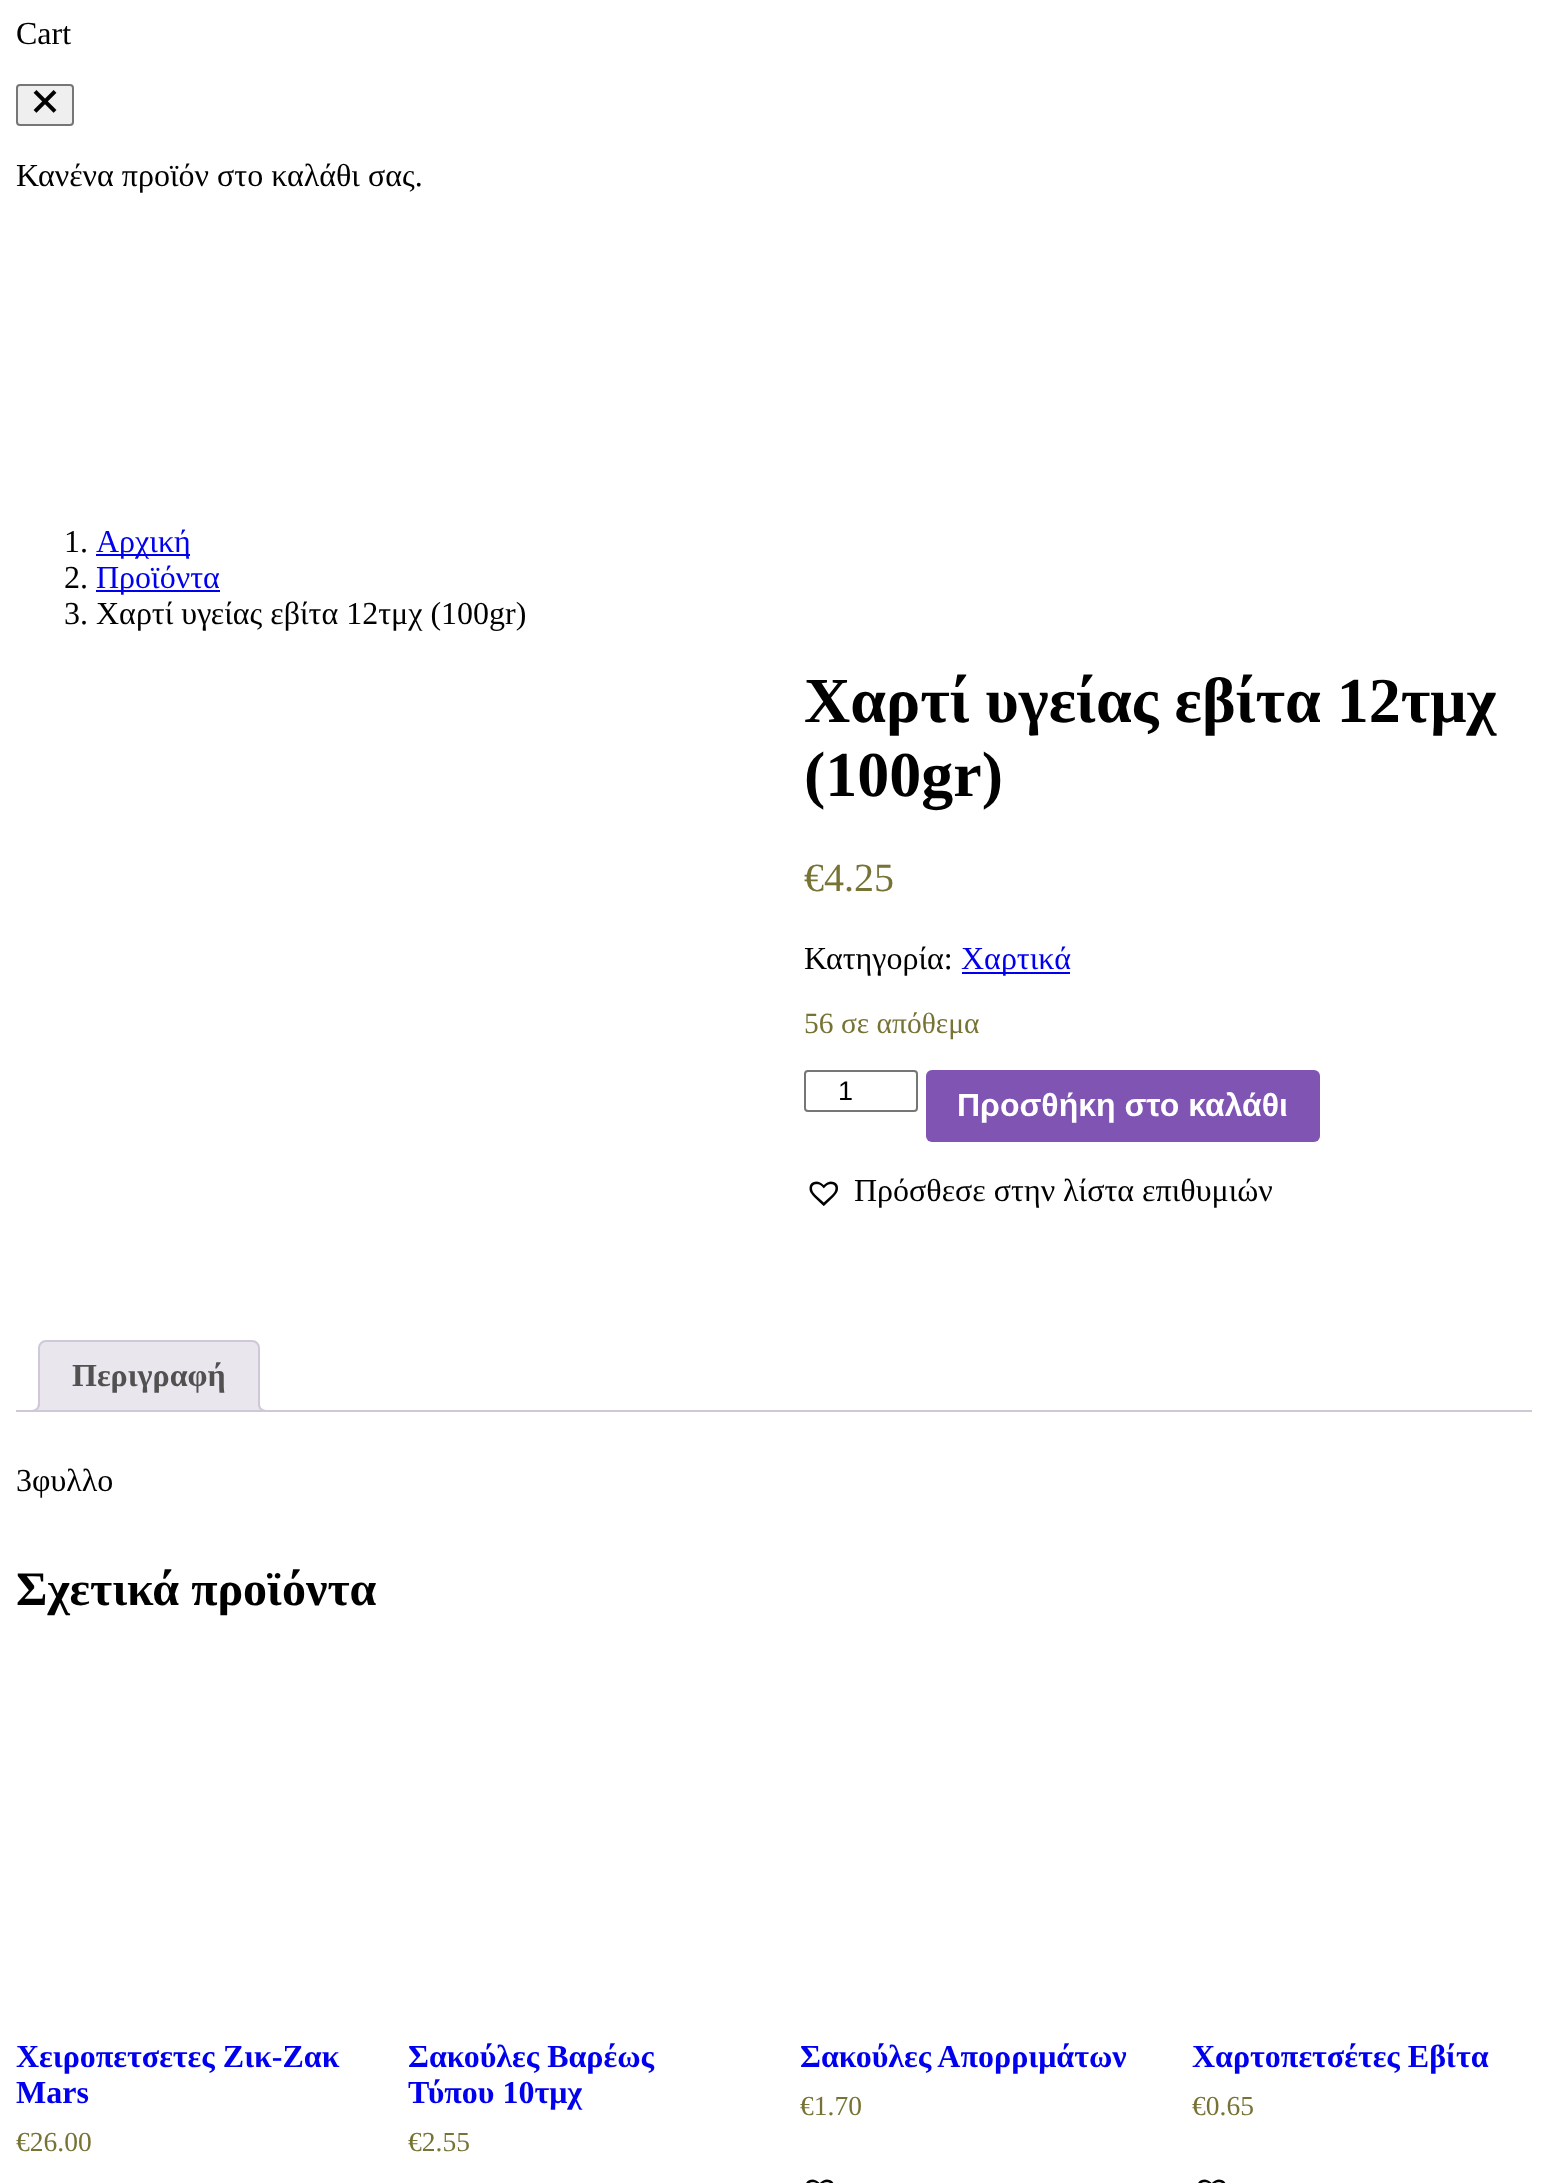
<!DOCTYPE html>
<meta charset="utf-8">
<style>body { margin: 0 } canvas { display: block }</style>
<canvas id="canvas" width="1547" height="2183"></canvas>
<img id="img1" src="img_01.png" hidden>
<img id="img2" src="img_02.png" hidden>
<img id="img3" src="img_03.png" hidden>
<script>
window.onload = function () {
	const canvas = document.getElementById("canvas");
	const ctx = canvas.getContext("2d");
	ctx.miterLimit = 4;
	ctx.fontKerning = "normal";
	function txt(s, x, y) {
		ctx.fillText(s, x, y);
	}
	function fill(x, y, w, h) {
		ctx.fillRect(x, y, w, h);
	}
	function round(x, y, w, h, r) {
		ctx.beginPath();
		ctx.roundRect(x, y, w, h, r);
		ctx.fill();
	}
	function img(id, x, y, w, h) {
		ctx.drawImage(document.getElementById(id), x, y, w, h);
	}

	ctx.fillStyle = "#FFFFFF";
	fill(0, 0, 1547, 2183);
	ctx.fillStyle = "#EFEFEF";
	ctx.beginPath();
	ctx.roundRect(17, 85, 56, 40, 3);
	ctx.fill();
	ctx.strokeStyle = "#767676";
	ctx.lineWidth = 2;
	ctx.stroke();
	img("img1", 33, 90, 24, 23);
	ctx.fillStyle = "#0000EE";
	fill(96, 554, 94, 2);
	fill(96, 590, 124, 2);
	fill(962, 972, 108, 2);
	ctx.beginPath();
	ctx.roundRect(805, 1071, 112, 40, 3);
	ctx.stroke();
	ctx.fillStyle = "#7F54B3";
	round(926, 1070, 394, 72, 6);
	img("img2", 809, 1181, 29, 25);
	ctx.fillStyle = "#E9E6ED";
	ctx.beginPath();
	ctx.roundRect(39, 1341, 220, 70, [7, 7, 0, 0]);
	ctx.fill();
	ctx.strokeStyle = "#CFC8D8";
	ctx.stroke();
	ctx.save();
	ctx.beginPath();
	ctx.rect(16, 1340, 1516, 72);
	ctx.clip();
	ctx.beginPath();
	ctx.moveTo(34, 1411.5);
	ctx.lineTo(34, 1416);
	ctx.bezierCurveTo(41, 1416, 44, 1413, 44, 1406);
	ctx.lineTo(39.5, 1406);
	ctx.bezierCurveTo(39, 1409, 37, 1411, 34, 1411.5);
	ctx.closePath();
	ctx.fill();
	ctx.restore();
	ctx.fillStyle = "#CFC8D8";
	ctx.beginPath();
	ctx.moveTo(30, 1402);
	ctx.lineTo(40, 1402);
	ctx.bezierCurveTo(40, 1409, 37, 1412, 30, 1412);
	ctx.closePath();
	ctx.moveTo(30, 1402);
	ctx.lineTo(38, 1402);
	ctx.bezierCurveTo(38, 1408, 36, 1410, 30, 1410);
	ctx.closePath();
	ctx.fill("evenodd");
	ctx.save();
	ctx.beginPath();
	ctx.rect(16, 1340, 1516, 72);
	ctx.clip();
	ctx.fillStyle = "#E9E6ED";
	ctx.beginPath();
	ctx.moveTo(254, 1406);
	ctx.bezierCurveTo(254, 1413, 257, 1416, 264, 1416);
	ctx.lineTo(264, 1411.5);
	ctx.bezierCurveTo(261, 1411, 259, 1409, 258.5, 1406);
	ctx.closePath();
	ctx.fill();
	ctx.restore();
	ctx.beginPath();
	ctx.moveTo(258, 1402);
	ctx.lineTo(268, 1402);
	ctx.lineTo(268, 1412);
	ctx.bezierCurveTo(263, 1412, 258, 1410, 258, 1404);
	ctx.closePath();
	ctx.moveTo(260, 1402);
	ctx.lineTo(268, 1402);
	ctx.lineTo(268, 1410);
	ctx.bezierCurveTo(264, 1410, 260, 1409, 260, 1404);
	ctx.closePath();
	ctx.fill("evenodd");
	fill(16, 1410, 1516, 2);
	img("img3", 806, 2179, 28, 4);
	img("img3", 1198, 2179, 28, 4);
	ctx.font = "32px Liberation Serif";
	ctx.fillStyle = "#000000";
	txt("Cart", 16, 44);
	txt("Κανένα προϊόν στο καλάθι σας.", 16, 186);
	txt("1.", 64, 552);
	ctx.fillStyle = "#0000EE";
	txt("Αρχική", 96, 552);
	ctx.fillStyle = "#000000";
	txt("2.", 64, 588);
	ctx.fillStyle = "#0000EE";
	txt("Προϊόντα", 96, 588);
	ctx.fillStyle = "#000000";
	txt("3. Χαρτί υγείας εβίτα 12τμχ (100gr)", 64, 624);
	ctx.font = "bold 64px Liberation Serif";
	txt("Χαρτί υγείας εβίτα 12τμχ", 804, 722);
	txt("(100gr)", 804, 796);
	ctx.font = "40px Liberation Serif";
	ctx.fillStyle = "#777335";
	txt("€4.25", 804, 891);
	ctx.font = "32px Liberation Serif";
	ctx.fillStyle = "#000000";
	txt("Κατηγορία:", 804, 969);
	ctx.fillStyle = "#0000EE";
	txt("Χαρτικά", 961, 969);
	ctx.font = "29.5px Liberation Serif";
	ctx.fillStyle = "#777335";
	txt("56 σε απόθεμα", 804, 1033);
	ctx.font = "27px Liberation Sans";
	ctx.fillStyle = "#000000";
	txt("1", 838, 1100);
	ctx.font = "bold 32px Liberation Sans";
	ctx.fillStyle = "#FFFFFF";
	txt("Προσθήκη στο καλάθι", 957, 1116);
	ctx.font = "32px Liberation Serif";
	ctx.fillStyle = "#000000";
	txt("Πρόσθεσε στην λίστα επιθυμιών", 854, 1201);
	ctx.font = "bold 32px Liberation Serif";
	ctx.fillStyle = "#515151";
	txt("Περιγραφή", 72, 1386);
	ctx.font = "32px Liberation Serif";
	ctx.fillStyle = "#000000";
	txt("3φυλλο", 16, 1491);
	ctx.font = "bold 48px Liberation Serif";
	txt("Σχετικά προϊόντα", 16, 1605);
	ctx.font = "bold 32px Liberation Serif";
	ctx.fillStyle = "#0000EE";
	txt("Χειροπετσετες Ζικ-Ζακ", 16, 2067);
	txt("Μars", 16, 2103);
	ctx.font = "27.5px Liberation Serif";
	ctx.fillStyle = "#777335";
	txt("€26.00", 16, 2151);
	ctx.font = "bold 32px Liberation Serif";
	ctx.fillStyle = "#0000EE";
	txt("Σακούλες Βαρέως", 408, 2067);
	txt("Τύπου 10τμχ", 408, 2103);
	ctx.font = "27.5px Liberation Serif";
	ctx.fillStyle = "#777335";
	txt("€2.55", 408, 2151);
	ctx.font = "bold 32px Liberation Serif";
	ctx.fillStyle = "#0000EE";
	txt("Σακούλες Απορριμάτων", 800, 2067);
	ctx.font = "27.5px Liberation Serif";
	ctx.fillStyle = "#777335";
	txt("€1.70", 800, 2115);
	ctx.font = "bold 32px Liberation Serif";
	ctx.fillStyle = "#0000EE";
	txt("Χαρτοπετσέτες Εβίτα", 1192, 2067);
	ctx.font = "27.5px Liberation Serif";
	ctx.fillStyle = "#777335";
	txt("€0.65", 1192, 2115);
};
</script>
